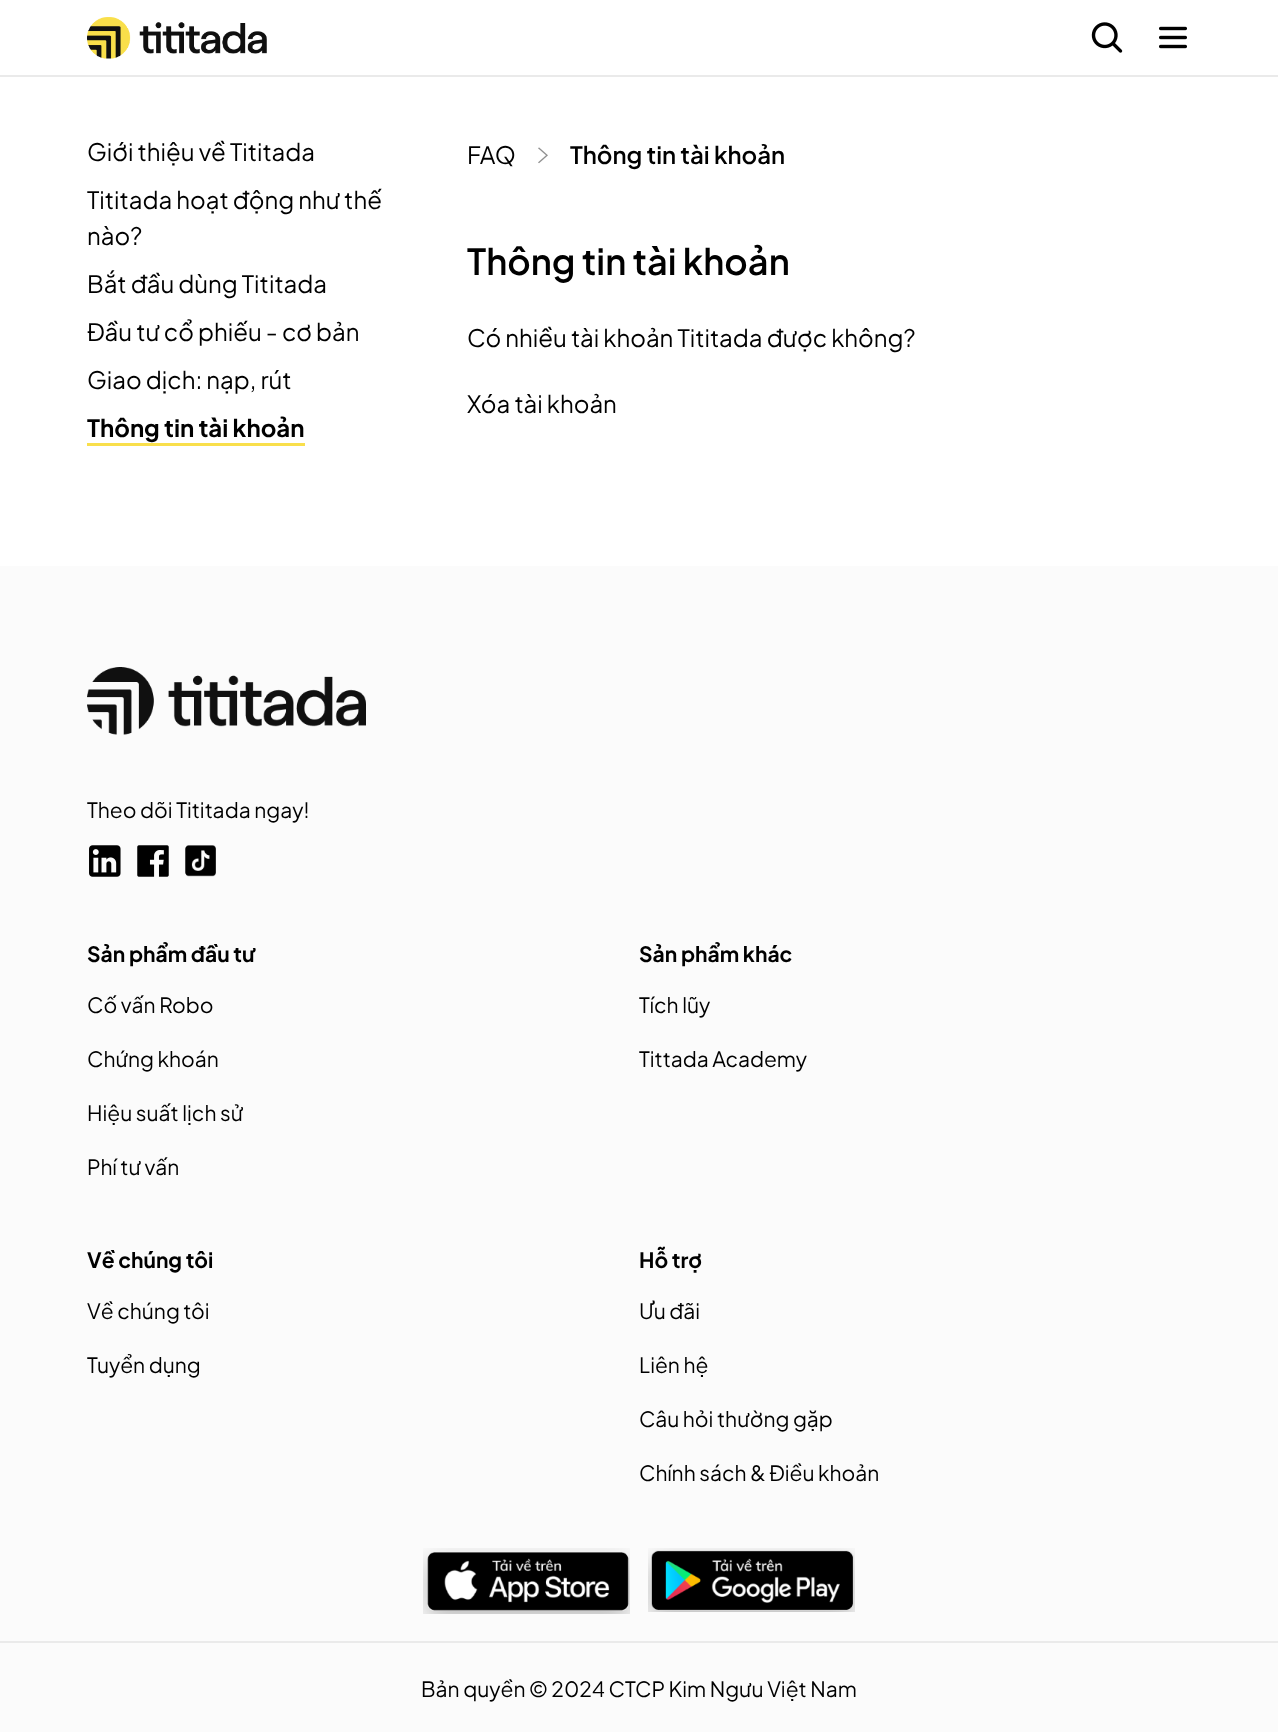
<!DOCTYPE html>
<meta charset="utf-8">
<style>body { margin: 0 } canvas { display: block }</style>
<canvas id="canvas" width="1278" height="1732"></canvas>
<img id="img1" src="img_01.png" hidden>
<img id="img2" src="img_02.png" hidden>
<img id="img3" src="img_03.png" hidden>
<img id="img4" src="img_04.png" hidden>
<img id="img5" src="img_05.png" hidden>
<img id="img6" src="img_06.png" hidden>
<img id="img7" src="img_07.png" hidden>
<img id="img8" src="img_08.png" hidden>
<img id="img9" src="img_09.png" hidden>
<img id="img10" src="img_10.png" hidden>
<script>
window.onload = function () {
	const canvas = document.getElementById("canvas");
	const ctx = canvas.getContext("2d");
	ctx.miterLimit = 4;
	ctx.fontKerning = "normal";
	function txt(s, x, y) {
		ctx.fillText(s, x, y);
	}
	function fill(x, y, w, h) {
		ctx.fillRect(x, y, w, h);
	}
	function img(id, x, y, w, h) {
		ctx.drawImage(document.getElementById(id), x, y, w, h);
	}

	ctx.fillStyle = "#FFFFFF";
	fill(0, 0, 1278, 1732);
	ctx.fillStyle = "#EAEAEA";
	fill(0, 75, 1278, 2);
	img("img1", 87, 17, 180, 42);
	img("img2", 1091, 22, 32, 31);
	img("img3", 1159, 26, 28, 23);
	ctx.fillStyle = "#F9DF4B";
	fill(87, 443, 218, 3);
	img("img4", 538, 147, 10, 17);
	ctx.fillStyle = "#FBFBFB";
	fill(0, 566, 1278, 1166);
	img("img5", 87, 667, 279, 68);
	img("img6", 89, 845, 32, 32);
	img("img7", 137, 845, 32, 32);
	img("img8", 185, 845, 31, 32);
	img("img9", 423, 1548, 207, 66);
	img("img10", 648, 1548, 207, 64);
	ctx.fillStyle = "#EAEAEA";
	fill(0, 1641, 1278, 2);
	ctx.font = "24px Plus Jakarta Sans";
	ctx.fillStyle = "#000000";
	txt("Giới thiệu về Tititada", 87, 161);
	txt("Tititada hoạt động như thế", 87, 209);
	txt("nào?", 87, 245);
	txt("Bắt đầu dùng Tititada", 87, 293);
	txt("Đầu tư cổ phiếu - cơ bản", 87, 341);
	txt("Giao dịch: nạp, rút", 87, 389);
	ctx.font = "bold 24px Plus Jakarta Sans";
	txt("Thông tin tài khoản", 87, 437);
	ctx.font = "24px Plus Jakarta Sans";
	txt("FAQ", 467, 164);
	ctx.font = "600 24px Plus Jakarta Sans";
	txt("Thông tin tài khoản", 570, 164);
	ctx.font = "600 36px Plus Jakarta Sans";
	txt("Thông tin tài khoản", 467, 275);
	ctx.font = "24px Plus Jakarta Sans";
	txt("Có nhiều tài khoản Tititada được không?", 467, 347);
	txt("Xóa tài khoản", 467, 413);
	ctx.font = "21px Plus Jakarta Sans";
	txt("Theo dõi Tititada ngay!", 87, 818);
	ctx.font = "bold 21px Plus Jakarta Sans";
	txt("Sản phẩm đầu tư", 87, 962);
	ctx.font = "21px Plus Jakarta Sans";
	txt("Cố vấn Robo", 87, 1013);
	txt("Chứng khoán", 87, 1067);
	txt("Hiệu suất lịch sử", 87, 1121);
	txt("Phí tư vấn", 87, 1175);
	ctx.font = "bold 21px Plus Jakarta Sans";
	txt("Sản phẩm khác", 639, 962);
	ctx.font = "21px Plus Jakarta Sans";
	txt("Tích lũy", 639, 1013);
	txt("Tittada Academy", 639, 1067);
	ctx.font = "bold 21px Plus Jakarta Sans";
	txt("Về chúng tôi", 87, 1268);
	ctx.font = "21px Plus Jakarta Sans";
	txt("Về chúng tôi", 87, 1319);
	txt("Tuyển dụng", 87, 1373);
	ctx.font = "bold 21px Plus Jakarta Sans";
	txt("Hỗ trợ", 639, 1268);
	ctx.font = "21px Plus Jakarta Sans";
	txt("Ưu đãi", 639, 1319);
	txt("Liên hệ", 639, 1373);
	txt("Câu hỏi thường gặp", 639, 1427);
	txt("Chính sách & Điều khoản", 639, 1481);
	txt("Bản quyền © 2024 CTCP Kim Ngưu Việt Nam", 421, 1697);
};
</script>
